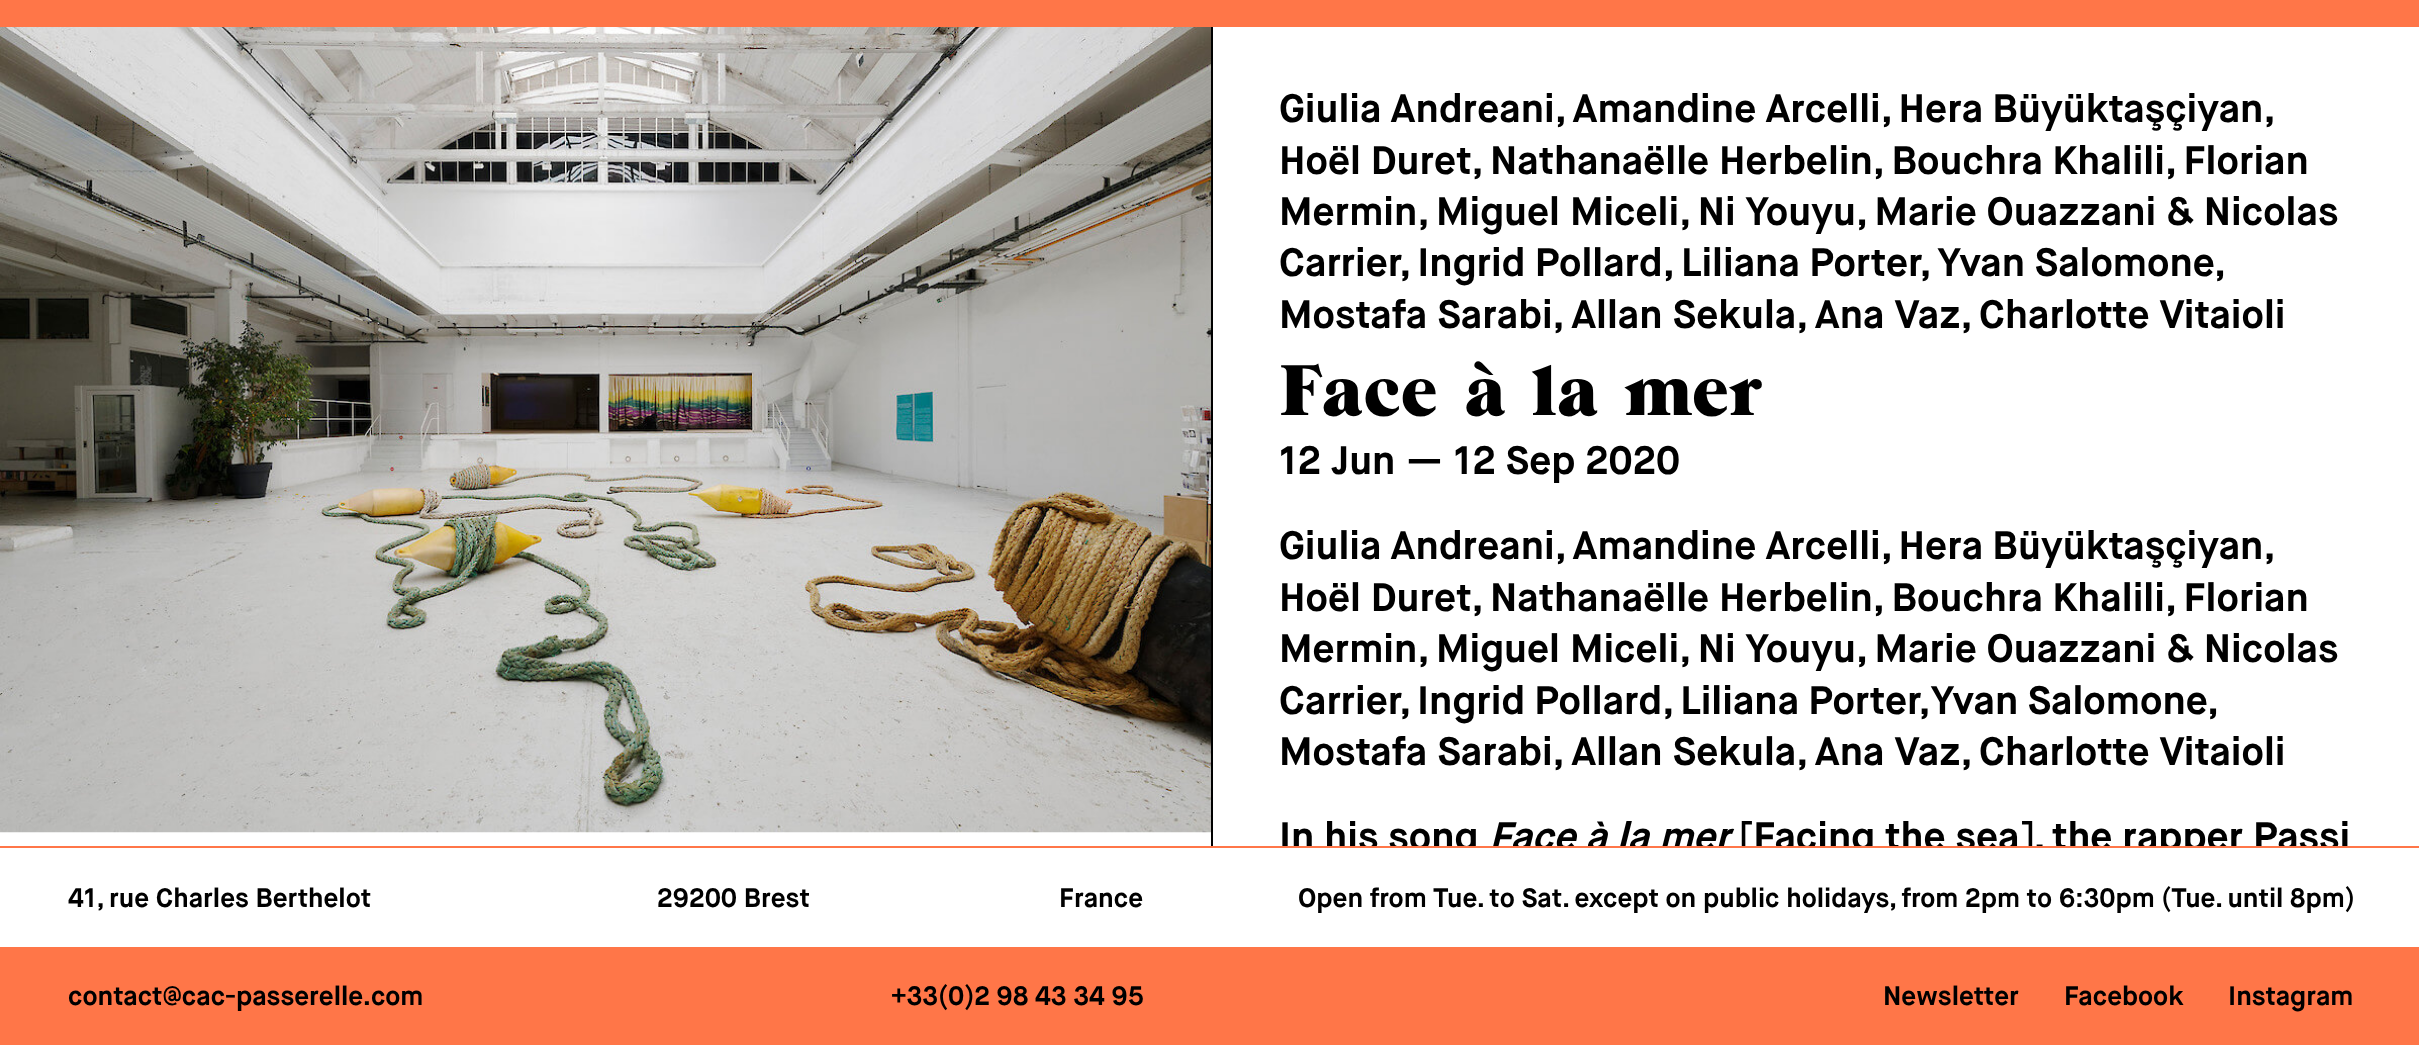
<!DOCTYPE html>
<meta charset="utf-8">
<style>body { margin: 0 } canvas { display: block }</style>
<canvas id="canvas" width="2419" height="1045"></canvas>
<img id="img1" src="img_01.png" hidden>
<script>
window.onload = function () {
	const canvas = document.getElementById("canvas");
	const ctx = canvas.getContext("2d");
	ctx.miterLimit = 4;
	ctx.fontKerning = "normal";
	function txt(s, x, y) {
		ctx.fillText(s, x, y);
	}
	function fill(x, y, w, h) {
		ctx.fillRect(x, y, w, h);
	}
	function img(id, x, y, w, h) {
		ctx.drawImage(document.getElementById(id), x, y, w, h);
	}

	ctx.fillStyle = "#FF7648";
	fill(0, 0, 2419, 1045);
	ctx.fillStyle = "#FFFFFF";
	fill(0, 832, 1211, 14);
	img("img1", 0, 27, 1211, 806);
	fill(1213, 27, 1206, 819);
	ctx.fillStyle = "#000000";
	fill(1211, 27, 2, 819);
	ctx.fillStyle = "#FFFFFF";
	fill(0, 848, 2419, 99);
	ctx.wordSpacing = "-0.75px";
	ctx.font = "bold 39.6px Maison Neue";
	ctx.fillStyle = "#000000";
	txt("Giulia Andreani, Amandine Arcelli, Hera Büyüktaşçiyan,", 1279, 122);
	ctx.wordSpacing = "0px";
	txt("Hoël Duret, Nathanaëlle Herbelin, Bouchra Khalili, Florian", 1279, 174);
	txt("Mermin, Miguel Miceli, Ni Youyu, Marie Ouazzani & Nicolas", 1279, 225);
	ctx.wordSpacing = "-0.5px";
	txt("Carrier, Ingrid Pollard, Liliana Porter, Yvan Salomone,", 1279, 276);
	ctx.wordSpacing = "0px";
	txt("Mostafa Sarabi, Allan Sekula, Ana Vaz, Charlotte Vitaioli", 1279, 328);
	ctx.font = "900 72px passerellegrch";
	txt("Face à la mer", 1279, 415);
	ctx.font = "bold 39.6px Maison Neue";
	txt("12 Jun — 12 Sep 2020", 1279, 474);
	ctx.wordSpacing = "-0.75px";
	txt("Giulia Andreani, Amandine Arcelli, Hera Büyüktaşçiyan,", 1279, 559);
	ctx.wordSpacing = "0px";
	txt("Hoël Duret, Nathanaëlle Herbelin, Bouchra Khalili, Florian", 1279, 611);
	txt("Mermin, Miguel Miceli, Ni Youyu, Marie Ouazzani & Nicolas", 1279, 662);
	ctx.wordSpacing = "-0.75px";
	txt("Carrier, Ingrid Pollard, Liliana Porter,Yvan Salomone,", 1279, 714);
	ctx.wordSpacing = "0px";
	txt("Mostafa Sarabi, Allan Sekula, Ana Vaz, Charlotte Vitaioli", 1279, 765);
	ctx.save();
	ctx.beginPath();
	ctx.rect(1211, 27, 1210, 819);
	ctx.clip();
	txt("In his song", 1279, 850);
	ctx.font = "italic bold 39.6px Maison Neue";
	txt("Face à la mer", 1489, 850);
	ctx.font = "bold 39.6px Maison Neue";
	txt("[Facing the sea], the rapper Passi", 1739, 850);
	ctx.restore();
	ctx.font = "bold 26.65px Maison Neue";
	txt("41, rue Charles Berthelot", 68, 907);
	txt("29200 Brest", 657, 907);
	txt("France", 1059, 907);
	txt("contact@cac-passerelle.com", 68, 1005);
	txt("+33(0)2 98 43 34 95", 891, 1005);
	txt("Open from Tue. to Sat. except on public holidays, from 2pm to 6:30pm (Tue. until 8pm)", 1298, 907);
	txt("Newsletter", 1883, 1005);
	txt("Facebook", 2064, 1005);
	txt("Instagram", 2228, 1005);
};
</script>
